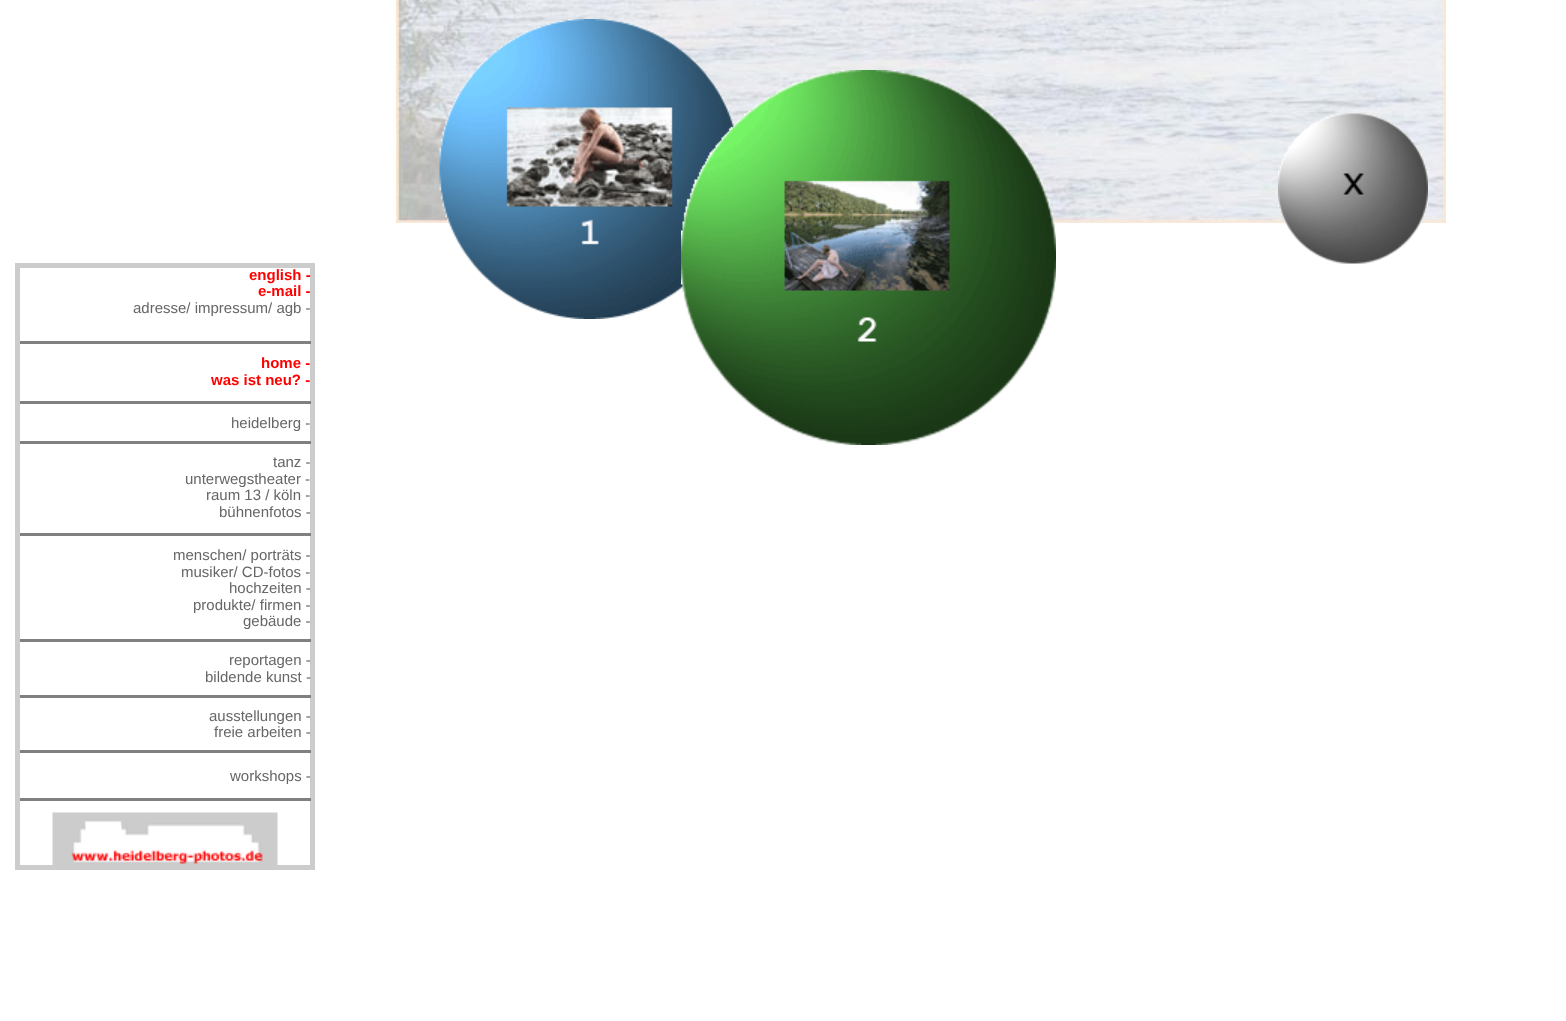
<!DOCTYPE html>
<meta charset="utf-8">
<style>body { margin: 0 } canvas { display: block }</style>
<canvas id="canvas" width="1566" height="1021"></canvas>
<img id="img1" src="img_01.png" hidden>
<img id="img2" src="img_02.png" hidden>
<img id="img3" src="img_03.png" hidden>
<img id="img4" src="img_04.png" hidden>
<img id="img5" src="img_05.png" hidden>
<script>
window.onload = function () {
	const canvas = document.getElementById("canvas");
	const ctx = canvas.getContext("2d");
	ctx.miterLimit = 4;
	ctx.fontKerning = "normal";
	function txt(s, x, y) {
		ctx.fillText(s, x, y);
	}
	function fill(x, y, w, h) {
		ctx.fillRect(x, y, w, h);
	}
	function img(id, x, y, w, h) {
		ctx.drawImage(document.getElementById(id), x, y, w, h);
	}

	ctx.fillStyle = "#FFFFFF";
	fill(0, 0, 1566, 1021);
	img("img1", 396, 0, 1050, 223);
	img("img2", 439, 19, 295, 300);
	img("img3", 681, 70, 375, 375);
	img("img4", 1278, 113, 150, 151);
	ctx.strokeStyle = "#CCCCCC";
	ctx.lineWidth = 3;
	ctx.strokeRect(16.5, 264.5, 297, 604);
	ctx.lineWidth = 2;
	ctx.strokeRect(19, 267, 292, 599);
	ctx.fillStyle = "#808080";
	fill(20, 341, 291, 3);
	fill(20, 401, 291, 3);
	fill(20, 441, 291, 3);
	fill(20, 533, 291, 3);
	fill(20, 639, 291, 3);
	fill(20, 695, 291, 3);
	fill(20, 750, 291, 3);
	fill(20, 798, 291, 3);
	img("img5", 52, 812, 226, 53);
	ctx.font = "bold 15px Liberation Sans";
	ctx.fillStyle = "#FF0000";
	txt("english -", 249, 280);
	txt("e-mail -", 258, 296);
	ctx.font = "15px Liberation Sans";
	ctx.fillStyle = "#666666";
	txt("adresse/ impressum/ agb -", 133, 313);
	ctx.font = "bold 15px Liberation Sans";
	ctx.fillStyle = "#FF0000";
	txt("home -", 261, 368);
	txt("was ist neu? -", 211, 385);
	ctx.font = "15px Liberation Sans";
	ctx.fillStyle = "#666666";
	txt("heidelberg -", 231, 428);
	txt("tanz -", 273, 467);
	txt("unterwegstheater -", 185, 484);
	txt("raum 13 / köln -", 206, 500);
	txt("bühnenfotos -", 219, 517);
	txt("menschen/ porträts -", 173, 560);
	txt("musiker/ CD-fotos -", 181, 577);
	txt("hochzeiten -", 229, 593);
	txt("produkte/ firmen -", 193, 610);
	txt("gebäude -", 243, 626);
	txt("reportagen -", 229, 665);
	txt("bildende kunst -", 205, 682);
	txt("ausstellungen -", 209, 721);
	txt("freie arbeiten -", 214, 737);
	txt("workshops -", 230, 781);
};
</script>
